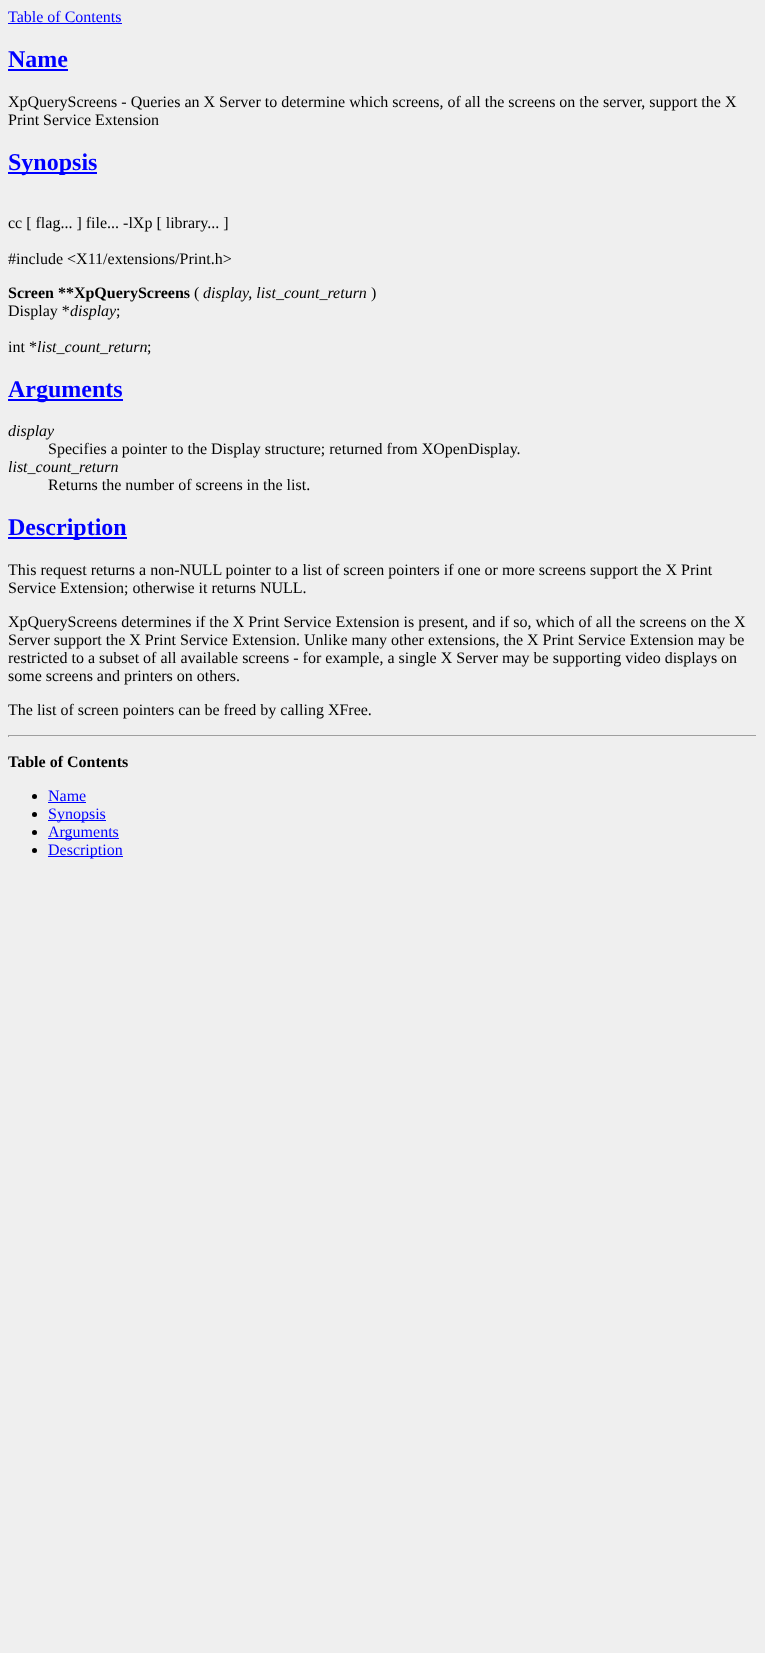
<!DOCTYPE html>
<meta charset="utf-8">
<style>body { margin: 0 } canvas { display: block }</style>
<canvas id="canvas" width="765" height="1653"></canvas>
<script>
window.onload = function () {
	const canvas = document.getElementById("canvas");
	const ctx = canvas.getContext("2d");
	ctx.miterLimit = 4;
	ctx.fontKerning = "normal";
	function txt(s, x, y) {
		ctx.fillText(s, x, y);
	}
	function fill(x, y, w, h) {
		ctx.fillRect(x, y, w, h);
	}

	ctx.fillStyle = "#EFEFEF";
	fill(0, 0, 765, 1653);
	ctx.fillStyle = "#0000FF";
	fill(8, 23, 114, 1);
	fill(8, 69, 60, 2);
	fill(8, 172, 89, 2);
	fill(8, 399, 115, 2);
	fill(8, 537, 119, 2);
	ctx.fillStyle = "#9F9F9F";
	fill(8, 735, 749, 1);
	ctx.fillStyle = "#EEEEEE";
	fill(756, 735, 1, 2);
	ctx.fillStyle = "#9F9F9F";
	fill(8, 735, 1, 2);
	ctx.fillStyle = "#000000";
	ctx.beginPath();
	ctx.arc(34.5, 796.5, 2.5, 0, Math.PI * 2);
	ctx.fill();
	ctx.fillStyle = "#0000FF";
	fill(48, 802, 38, 1);
	ctx.fillStyle = "#000000";
	ctx.beginPath();
	ctx.arc(34.5, 814.5, 2.5, 0, Math.PI * 2);
	ctx.fill();
	ctx.fillStyle = "#0000FF";
	fill(48, 820, 58, 1);
	ctx.fillStyle = "#000000";
	ctx.beginPath();
	ctx.arc(34.5, 832.5, 2.5, 0, Math.PI * 2);
	ctx.fill();
	ctx.fillStyle = "#0000FF";
	fill(48, 838, 71, 1);
	ctx.fillStyle = "#000000";
	ctx.beginPath();
	ctx.arc(34.5, 850.5, 2.5, 0, Math.PI * 2);
	ctx.fill();
	ctx.fillStyle = "#0000FF";
	fill(48, 856, 75, 1);
	ctx.font = "16px Liberation Serif";
	txt("Table of Contents", 8, 22);
	ctx.font = "bold 24px Liberation Serif";
	txt("Name", 8, 67);
	ctx.font = "16px Liberation Serif";
	ctx.fillStyle = "#000000";
	txt("XpQueryScreens - Queries an X Server to determine which screens, of all the screens on the server, support the X", 8, 107);
	txt("Print Service Extension", 8, 125);
	ctx.font = "bold 24px Liberation Serif";
	ctx.fillStyle = "#0000FF";
	txt("Synopsis", 8, 170);
	ctx.font = "16px Liberation Serif";
	ctx.fillStyle = "#000000";
	txt("cc [ flag... ] file... -lXp [ library... ]", 8, 228);
	txt("#include <X11/extensions/Print.h>", 8, 264);
	ctx.font = "bold 16px Liberation Serif";
	txt("Screen **XpQueryScreens", 8, 298);
	ctx.font = "16px Liberation Serif";
	txt("(", 194, 298);
	ctx.font = "italic 16px Liberation Serif";
	txt("display, list_count_return", 203, 298);
	ctx.font = "16px Liberation Serif";
	txt(")", 371, 298);
	txt("Display *", 8, 316);
	ctx.font = "italic 16px Liberation Serif";
	txt("display", 70, 316);
	ctx.font = "16px Liberation Serif";
	txt(";", 116, 316);
	txt("int *", 8, 352);
	ctx.font = "italic 16px Liberation Serif";
	txt("list_count_return", 37, 352);
	ctx.font = "16px Liberation Serif";
	txt(";", 147, 352);
	ctx.font = "bold 24px Liberation Serif";
	ctx.fillStyle = "#0000FF";
	txt("Arguments", 8, 397);
	ctx.font = "italic 16px Liberation Serif";
	ctx.fillStyle = "#000000";
	txt("display", 8, 436);
	ctx.font = "16px Liberation Serif";
	txt("Specifies a pointer to the Display structure; returned from XOpenDisplay.", 48, 454);
	ctx.font = "italic 16px Liberation Serif";
	txt("list_count_return", 8, 472);
	ctx.font = "16px Liberation Serif";
	txt("Returns the number of screens in the list.", 48, 490);
	ctx.font = "bold 24px Liberation Serif";
	ctx.fillStyle = "#0000FF";
	txt("Description", 8, 535);
	ctx.font = "16px Liberation Serif";
	ctx.fillStyle = "#000000";
	txt("This request returns a non-NULL pointer to a list of screen pointers if one or more screens support the X Print", 8, 575);
	txt("Service Extension; otherwise it returns NULL.", 8, 593);
	txt("XpQueryScreens determines if the X Print Service Extension is present, and if so, which of all the screens on the X", 8, 627);
	txt("Server support the X Print Service Extension. Unlike many other extensions, the X Print Service Extension may be", 8, 645);
	txt("restricted to a subset of all available screens - for example, a single X Server may be supporting video displays on", 8, 663);
	txt("some screens and printers on others.", 8, 681);
	txt("The list of screen pointers can be freed by calling XFree.", 8, 715);
	ctx.font = "bold 16px Liberation Serif";
	txt("Table of Contents", 8, 767);
	ctx.font = "16px Liberation Serif";
	ctx.fillStyle = "#0000FF";
	txt("Name", 48, 801);
	txt("Synopsis", 48, 819);
	txt("Arguments", 48, 837);
	txt("Description", 48, 855);
};
</script>
